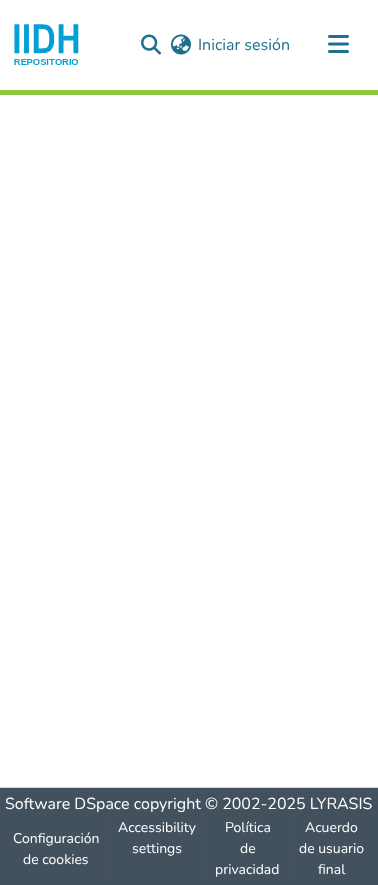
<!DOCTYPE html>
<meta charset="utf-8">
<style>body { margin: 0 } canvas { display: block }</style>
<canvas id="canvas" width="378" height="885"></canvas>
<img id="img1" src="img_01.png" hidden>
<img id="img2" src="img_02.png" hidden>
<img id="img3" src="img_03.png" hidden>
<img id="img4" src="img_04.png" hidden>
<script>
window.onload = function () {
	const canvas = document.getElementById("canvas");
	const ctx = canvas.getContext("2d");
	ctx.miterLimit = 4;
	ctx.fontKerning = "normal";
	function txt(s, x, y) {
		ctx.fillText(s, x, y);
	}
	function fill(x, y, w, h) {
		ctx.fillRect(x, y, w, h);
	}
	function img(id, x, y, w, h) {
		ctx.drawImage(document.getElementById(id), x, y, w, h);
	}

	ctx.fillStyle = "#FFFFFF";
	fill(0, 0, 378, 885);
	ctx.fillStyle = "#92C642";
	fill(0, 90, 378, 5);
	img("img1", 14, 24, 65, 41);
	img("img2", 141, 34, 20, 21);
	img("img3", 171, 34, 20, 21);
	img("img4", 328, 35, 21, 18);
	ctx.fillStyle = "#43515F";
	fill(0, 788, 378, 97);
	ctx.fillStyle = "#CED4DA";
	fill(0, 787, 378, 1);
	ctx.fillStyle = "#495057";
	fill(108, 816, 1, 65);
	fill(205, 816, 1, 65);
	fill(289, 816, 1, 65);
	ctx.font = "16px Nunito";
	ctx.fillStyle = "#1E6F90";
	txt("Iniciar sesión", 198, 50);
	ctx.fillStyle = "#FFFFFF";
	txt("Software DSpace copyright © 2002-2025 LYRASIS", 5, 809);
	ctx.font = "14px Nunito";
	txt("Configuración", 13, 843);
	txt("de cookies", 23, 864);
	txt("Accessibility", 118, 832);
	txt("settings", 132, 853);
	txt("Política", 225, 832);
	txt("de", 240, 853);
	txt("privacidad", 215, 874);
	txt("Acuerdo", 305, 832);
	txt("de usuario", 299, 853);
	txt("final", 318, 874);
};
</script>
